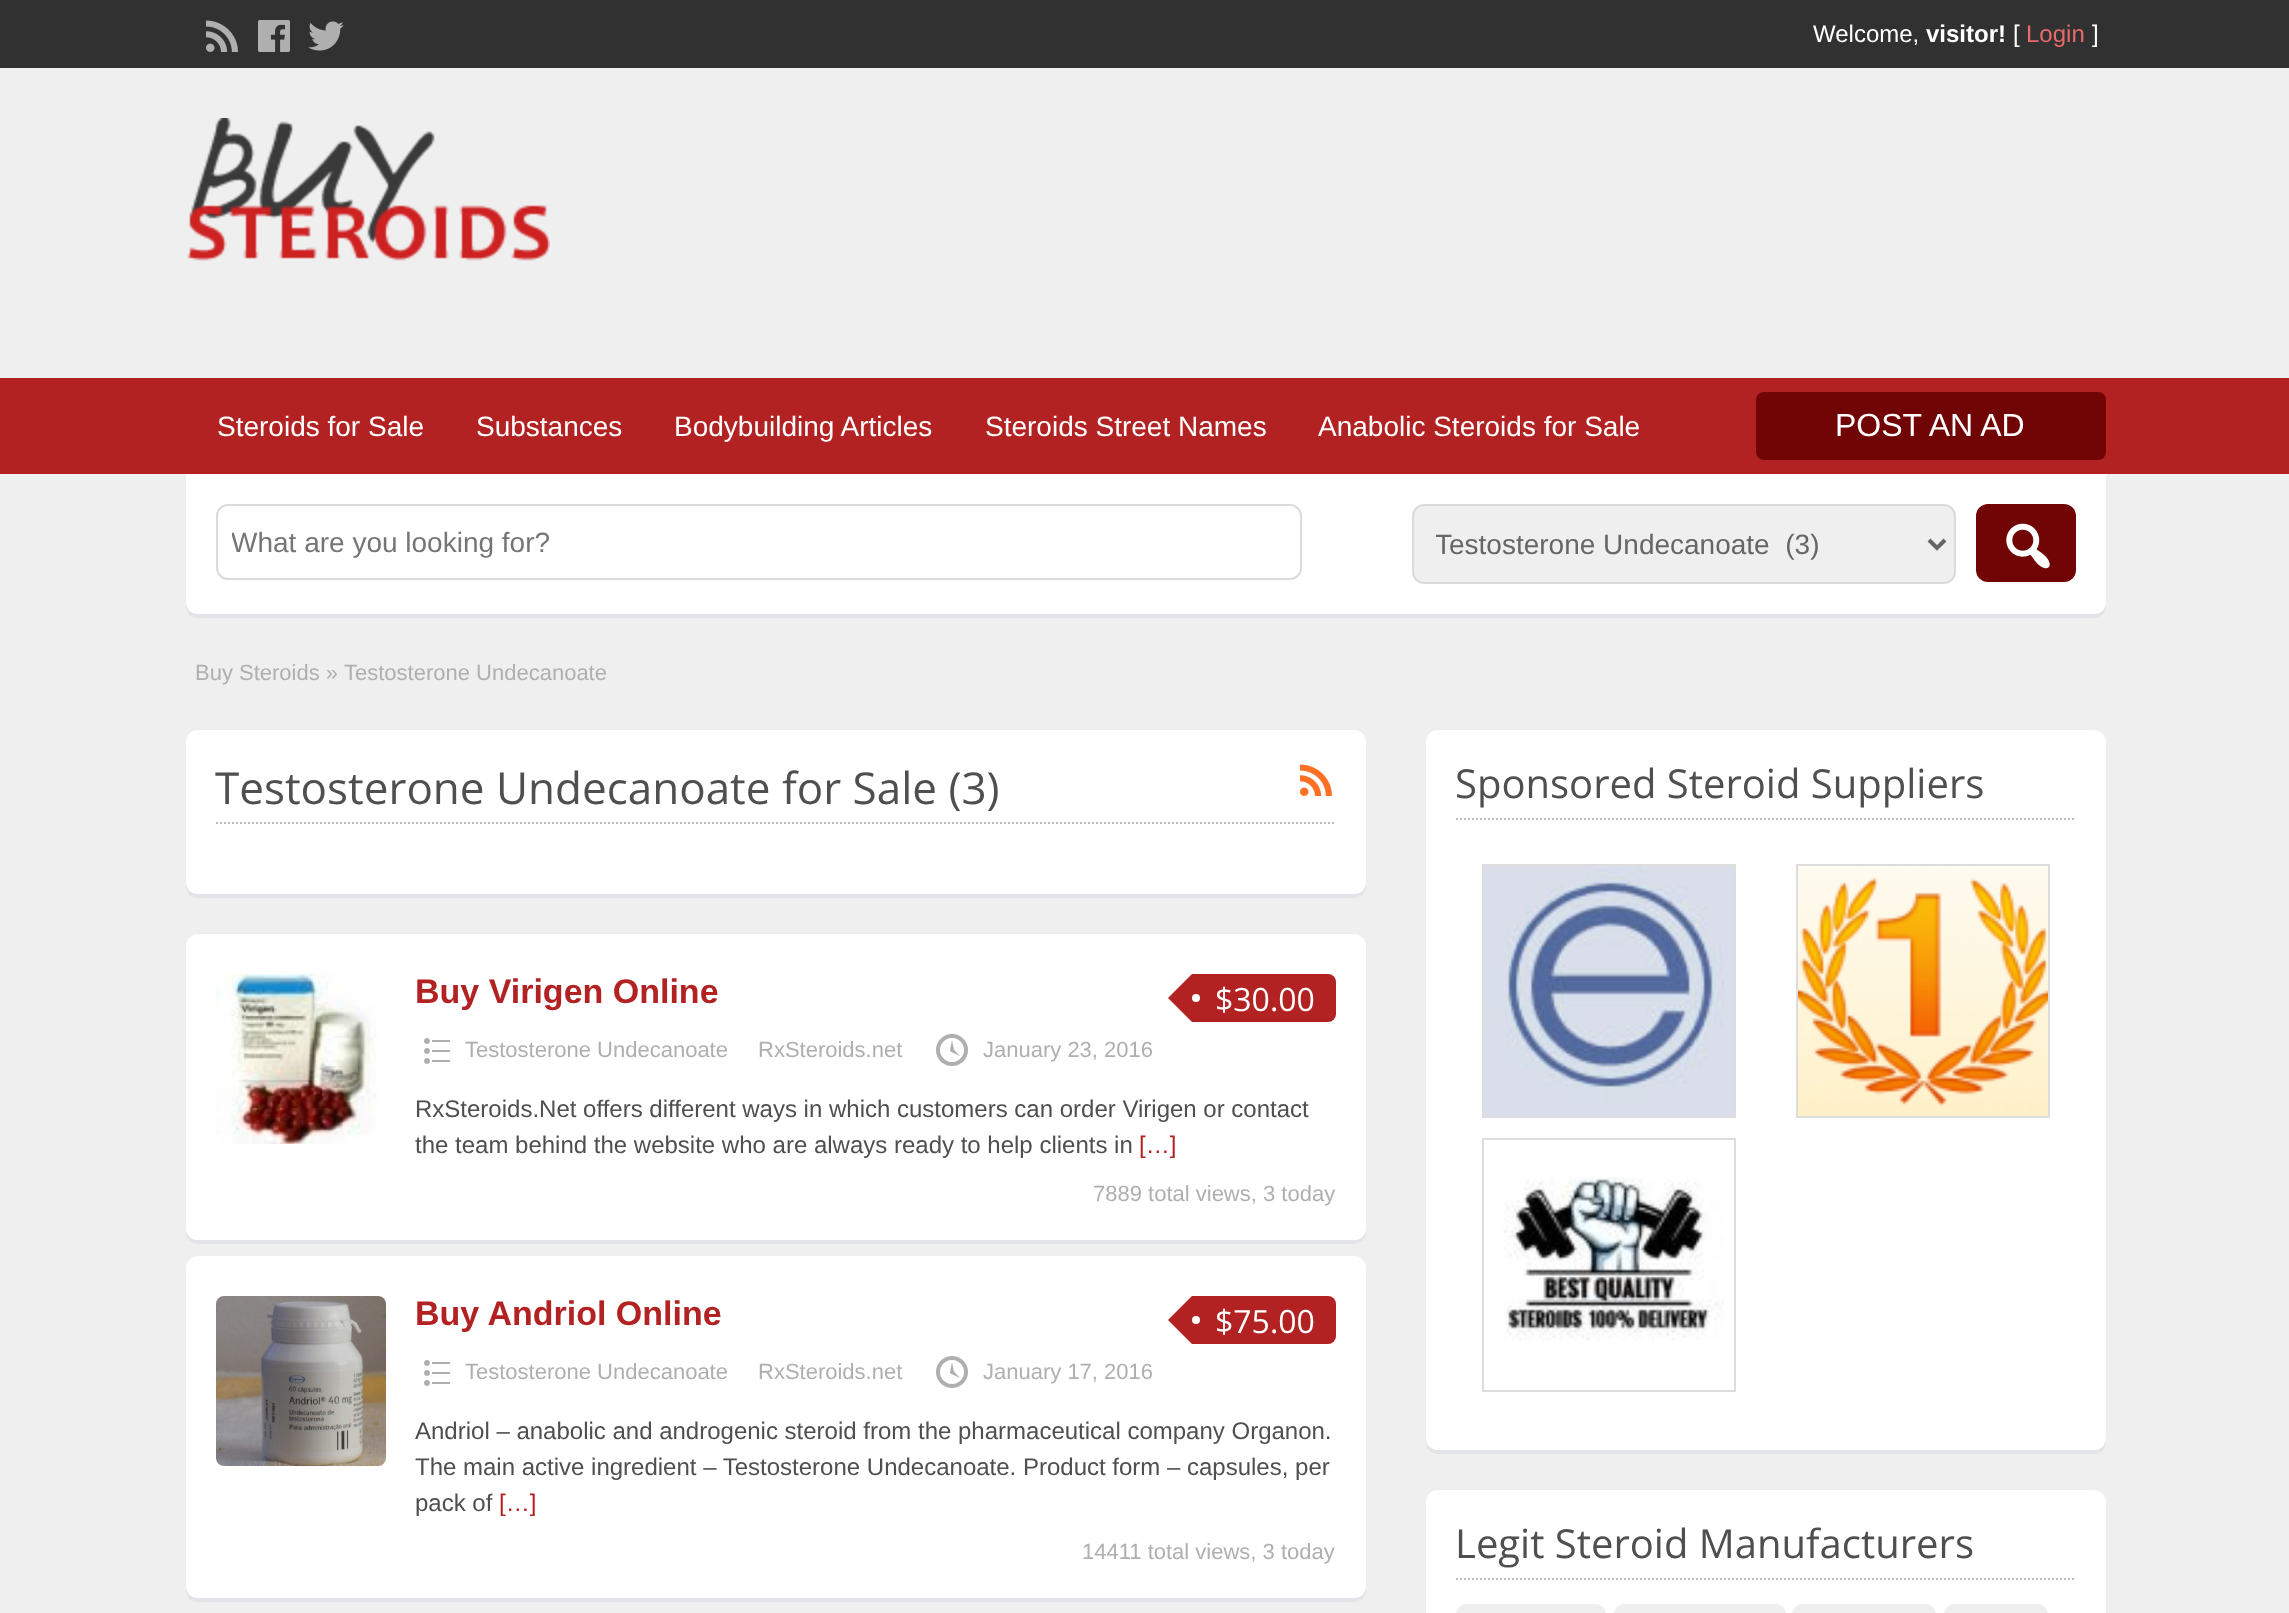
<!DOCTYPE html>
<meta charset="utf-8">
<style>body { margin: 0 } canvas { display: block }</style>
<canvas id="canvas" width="2289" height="1613"></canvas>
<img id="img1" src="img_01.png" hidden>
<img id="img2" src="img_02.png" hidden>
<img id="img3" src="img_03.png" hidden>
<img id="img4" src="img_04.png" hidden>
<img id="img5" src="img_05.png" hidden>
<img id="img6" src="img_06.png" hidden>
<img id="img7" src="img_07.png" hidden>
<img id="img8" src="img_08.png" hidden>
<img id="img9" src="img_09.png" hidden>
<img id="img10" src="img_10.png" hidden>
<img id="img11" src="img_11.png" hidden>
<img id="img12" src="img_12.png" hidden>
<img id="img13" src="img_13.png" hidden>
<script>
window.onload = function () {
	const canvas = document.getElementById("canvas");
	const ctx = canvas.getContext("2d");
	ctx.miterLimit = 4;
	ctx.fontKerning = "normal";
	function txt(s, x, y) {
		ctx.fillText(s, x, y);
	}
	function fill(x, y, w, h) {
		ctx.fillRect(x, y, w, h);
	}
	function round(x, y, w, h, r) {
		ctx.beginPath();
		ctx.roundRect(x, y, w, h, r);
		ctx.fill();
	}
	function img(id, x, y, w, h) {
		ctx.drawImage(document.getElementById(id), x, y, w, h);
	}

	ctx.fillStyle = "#EFEFEF";
	fill(0, 0, 2289, 1613);
	ctx.fillStyle = "#313131";
	fill(0, 0, 2289, 68);
	img("img1", 206, 20, 32, 32);
	img("img2", 258, 20, 32, 32);
	img("img3", 308, 21, 36, 30);
	img("img4", 187, 118, 363, 143);
	ctx.fillStyle = "#B22222";
	fill(0, 378, 2289, 96);
	ctx.fillStyle = "#710505";
	round(1756, 392, 350, 68, 8);
	ctx.fillStyle = "#E3E4E7";
	ctx.beginPath();
	ctx.moveTo(186, 602);
	ctx.lineTo(186, 606);
	ctx.bezierCurveTo(186, 613, 191, 618, 198, 618);
	ctx.lineTo(2094, 618);
	ctx.bezierCurveTo(2101, 618, 2106, 613, 2106, 606);
	ctx.lineTo(2106, 602);
	ctx.bezierCurveTo(2106, 609, 2101, 614, 2094, 614);
	ctx.lineTo(198, 614);
	ctx.bezierCurveTo(191, 614, 186, 609, 186, 602);
	ctx.closePath();
	ctx.fill();
	ctx.fillStyle = "#FFFFFF";
	ctx.beginPath();
	ctx.roundRect(186, 474, 1920, 140, [0, 0, 12, 12]);
	ctx.fill();
	ctx.beginPath();
	ctx.roundRect(217, 505, 1084, 74, 11);
	ctx.strokeStyle = "#DBDBDB";
	ctx.lineWidth = 2;
	ctx.stroke();
	ctx.fillStyle = "#EFEFEF";
	ctx.beginPath();
	ctx.roundRect(1413, 505, 542, 78, 11);
	ctx.fill();
	ctx.stroke();
	ctx.beginPath();
	ctx.moveTo(1929, 540);
	ctx.lineTo(1937, 548);
	ctx.lineTo(1945, 540);
	ctx.strokeStyle = "#666666";
	ctx.lineWidth = 4;
	ctx.stroke();
	ctx.fillStyle = "#710505";
	round(1976, 504, 100, 78, 12);
	img("img5", 2006, 523, 44, 46);
	ctx.fillStyle = "#E3E4E7";
	ctx.beginPath();
	ctx.moveTo(186, 882);
	ctx.lineTo(186, 886);
	ctx.bezierCurveTo(186, 893, 191, 898, 198, 898);
	ctx.lineTo(1354, 898);
	ctx.bezierCurveTo(1361, 898, 1366, 893, 1366, 886);
	ctx.lineTo(1366, 882);
	ctx.bezierCurveTo(1366, 889, 1361, 894, 1354, 894);
	ctx.lineTo(198, 894);
	ctx.bezierCurveTo(191, 894, 186, 889, 186, 882);
	ctx.closePath();
	ctx.fill();
	ctx.fillStyle = "#FFFFFF";
	round(186, 730, 1180, 164, 12);
	ctx.beginPath();
	ctx.moveTo(216, 823);
	ctx.lineTo(1336, 823);
	ctx.strokeStyle = "#BDBDBD";
	ctx.lineWidth = 2;
	ctx.setLineDash([2, 2]);
	ctx.stroke();
	img("img6", 1300, 764, 32, 32);
	ctx.fillStyle = "#E3E4E7";
	ctx.beginPath();
	ctx.moveTo(186, 1228);
	ctx.lineTo(186, 1232);
	ctx.bezierCurveTo(186, 1239, 191, 1244, 198, 1244);
	ctx.lineTo(1354, 1244);
	ctx.bezierCurveTo(1361, 1244, 1366, 1239, 1366, 1232);
	ctx.lineTo(1366, 1228);
	ctx.bezierCurveTo(1366, 1235, 1361, 1240, 1354, 1240);
	ctx.lineTo(198, 1240);
	ctx.bezierCurveTo(191, 1240, 186, 1235, 186, 1228);
	ctx.closePath();
	ctx.fill();
	ctx.fillStyle = "#FFFFFF";
	round(186, 934, 1180, 306, 12);
	img("img7", 216, 974, 161, 170);
	ctx.fillStyle = "#B22222";
	ctx.beginPath();
	ctx.roundRect(1192, 974, 144, 48, [0, 8, 8, 0]);
	ctx.fill();
	ctx.beginPath();
	ctx.moveTo(1192, 974);
	ctx.lineTo(1192, 1022);
	ctx.lineTo(1168, 998);
	ctx.closePath();
	ctx.fill();
	ctx.fillStyle = "#FFFFFF";
	ctx.beginPath();
	ctx.arc(1196, 998, 4, 0, Math.PI * 2);
	ctx.fill();
	img("img8", 424, 1038, 26, 26);
	img("img9", 936, 1034, 32, 32);
	ctx.fillStyle = "#E3E4E7";
	ctx.beginPath();
	ctx.moveTo(186, 1586);
	ctx.lineTo(186, 1590);
	ctx.bezierCurveTo(186, 1597, 191, 1602, 198, 1602);
	ctx.lineTo(1354, 1602);
	ctx.bezierCurveTo(1361, 1602, 1366, 1597, 1366, 1590);
	ctx.lineTo(1366, 1586);
	ctx.bezierCurveTo(1366, 1593, 1361, 1598, 1354, 1598);
	ctx.lineTo(198, 1598);
	ctx.bezierCurveTo(191, 1598, 186, 1593, 186, 1586);
	ctx.closePath();
	ctx.fill();
	ctx.fillStyle = "#FFFFFF";
	round(186, 1256, 1180, 342, 12);
	img("img10", 216, 1296, 170, 170);
	ctx.fillStyle = "#B22222";
	ctx.beginPath();
	ctx.roundRect(1192, 1296, 144, 48, [0, 8, 8, 0]);
	ctx.fill();
	ctx.beginPath();
	ctx.moveTo(1192, 1296);
	ctx.lineTo(1192, 1344);
	ctx.lineTo(1168, 1320);
	ctx.closePath();
	ctx.fill();
	ctx.fillStyle = "#FFFFFF";
	ctx.beginPath();
	ctx.arc(1196, 1320, 4, 0, Math.PI * 2);
	ctx.fill();
	img("img8", 424, 1360, 26, 26);
	img("img9", 936, 1356, 32, 32);
	ctx.fillStyle = "#E3E4E7";
	ctx.beginPath();
	ctx.moveTo(1426, 1438);
	ctx.lineTo(1426, 1442);
	ctx.bezierCurveTo(1426, 1449, 1431, 1454, 1438, 1454);
	ctx.lineTo(2094, 1454);
	ctx.bezierCurveTo(2101, 1454, 2106, 1449, 2106, 1442);
	ctx.lineTo(2106, 1438);
	ctx.bezierCurveTo(2106, 1445, 2101, 1450, 2094, 1450);
	ctx.lineTo(1438, 1450);
	ctx.bezierCurveTo(1431, 1450, 1426, 1445, 1426, 1438);
	ctx.closePath();
	ctx.fill();
	ctx.fillStyle = "#FFFFFF";
	round(1426, 730, 680, 720, 12);
	ctx.beginPath();
	ctx.moveTo(1456, 819);
	ctx.lineTo(2076, 819);
	ctx.stroke();
	ctx.strokeStyle = "#DDDDDD";
	ctx.setLineDash([]);
	ctx.strokeRect(1483, 865, 252, 252);
	img("img11", 1484, 866, 250, 250);
	ctx.strokeRect(1797, 865, 252, 252);
	img("img12", 1798, 866, 250, 250);
	ctx.strokeRect(1483, 1139, 252, 252);
	img("img13", 1503, 1177, 221, 164);
	round(1426, 1490, 680, 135, 12);
	ctx.beginPath();
	ctx.moveTo(1456, 1579);
	ctx.lineTo(2076, 1579);
	ctx.strokeStyle = "#BDBDBD";
	ctx.setLineDash([2, 2]);
	ctx.stroke();
	ctx.fillStyle = "#EFEFEF";
	round(1456, 1604, 150, 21, 12);
	round(1614, 1604, 172, 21, 12);
	round(1792, 1604, 144, 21, 12);
	round(1944, 1604, 104, 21, 12);
	ctx.font = "24px Liberation Sans";
	ctx.fillStyle = "#FFFFFF";
	txt("Welcome,", 1813, 42);
	ctx.font = "bold 24px Liberation Sans";
	txt("visitor!", 1926, 42);
	ctx.font = "24px Liberation Sans";
	txt("[", 2013, 42);
	ctx.fillStyle = "#E86B6B";
	txt("Login", 2026, 42);
	ctx.fillStyle = "#FFFFFF";
	txt("]", 2092, 42);
	ctx.font = "28px Liberation Sans";
	txt("Steroids for Sale", 217, 436);
	txt("Substances", 476, 436);
	txt("Bodybuilding Articles", 674, 436);
	txt("Steroids Street Names", 985, 436);
	txt("Anabolic Steroids for Sale", 1318, 436);
	ctx.font = "32px Liberation Sans";
	txt("POST AN AD", 1835, 436);
	ctx.save();
	ctx.beginPath();
	ctx.rect(232, 526, 1054, 32);
	ctx.clip();
	ctx.font = "28px Liberation Sans";
	ctx.fillStyle = "#757575";
	txt("What are you looking for?", 231, 552);
	ctx.restore();
	ctx.save();
	ctx.beginPath();
	ctx.rect(1436, 526, 472, 36);
	ctx.clip();
	ctx.font = "28px Liberation Sans";
	ctx.fillStyle = "#666666";
	txt("Testosterone Undecanoate  (3)", 1435, 554);
	ctx.restore();
	ctx.font = "22px Liberation Sans";
	ctx.fillStyle = "#AFAFAF";
	txt("Buy Steroids »", 195, 680);
	txt("Testosterone Undecanoate", 344, 680);
	ctx.font = "44px Open Sans";
	ctx.fillStyle = "#4F4F4F";
	txt("Testosterone Undecanoate for Sale (3)", 215, 804);
	ctx.font = "bold 34px Liberation Sans";
	ctx.fillStyle = "#B22222";
	txt("Buy Virigen Online", 415, 1003);
	ctx.font = "32px Open Sans";
	ctx.fillStyle = "#FFFFFF";
	txt("$30.00", 1215, 1011);
	ctx.font = "22px Liberation Sans";
	ctx.fillStyle = "#AFAFAF";
	txt("Testosterone Undecanoate", 465, 1057);
	txt("RxSteroids.net", 758, 1057);
	txt("January 23, 2016", 983, 1057);
	ctx.font = "24px Liberation Sans";
	ctx.fillStyle = "#4F4F4F";
	txt("RxSteroids.Net offers different ways in which customers can order Virigen or contact", 415, 1117);
	txt("the team behind the website who are always ready to help clients in", 415, 1153);
	ctx.fillStyle = "#B22222";
	txt("[…]", 1139, 1153);
	ctx.font = "22px Liberation Sans";
	ctx.fillStyle = "#AFAFAF";
	txt("7889 total views, 3 today", 1093, 1201);
	ctx.font = "bold 34px Liberation Sans";
	ctx.fillStyle = "#B22222";
	txt("Buy Andriol Online", 415, 1325);
	ctx.font = "32px Open Sans";
	ctx.fillStyle = "#FFFFFF";
	txt("$75.00", 1215, 1333);
	ctx.font = "22px Liberation Sans";
	ctx.fillStyle = "#AFAFAF";
	txt("Testosterone Undecanoate", 465, 1379);
	txt("RxSteroids.net", 758, 1379);
	txt("January 17, 2016", 983, 1379);
	ctx.font = "24px Liberation Sans";
	ctx.fillStyle = "#4F4F4F";
	txt("Andriol – anabolic and androgenic steroid from the pharmaceutical company Organon.", 415, 1439);
	txt("The main active ingredient – Testosterone Undecanoate. Product form – capsules, per", 415, 1475);
	txt("pack of", 415, 1511);
	ctx.fillStyle = "#B22222";
	txt("[…]", 499, 1511);
	ctx.font = "22px Liberation Sans";
	ctx.fillStyle = "#AFAFAF";
	txt("14411 total views, 3 today", 1082, 1559);
	ctx.font = "40px Open Sans";
	ctx.fillStyle = "#4F4F4F";
	txt("Sponsored Steroid Suppliers", 1455, 798);
	txt("Legit Steroid Manufacturers", 1455, 1558);
};
</script>
